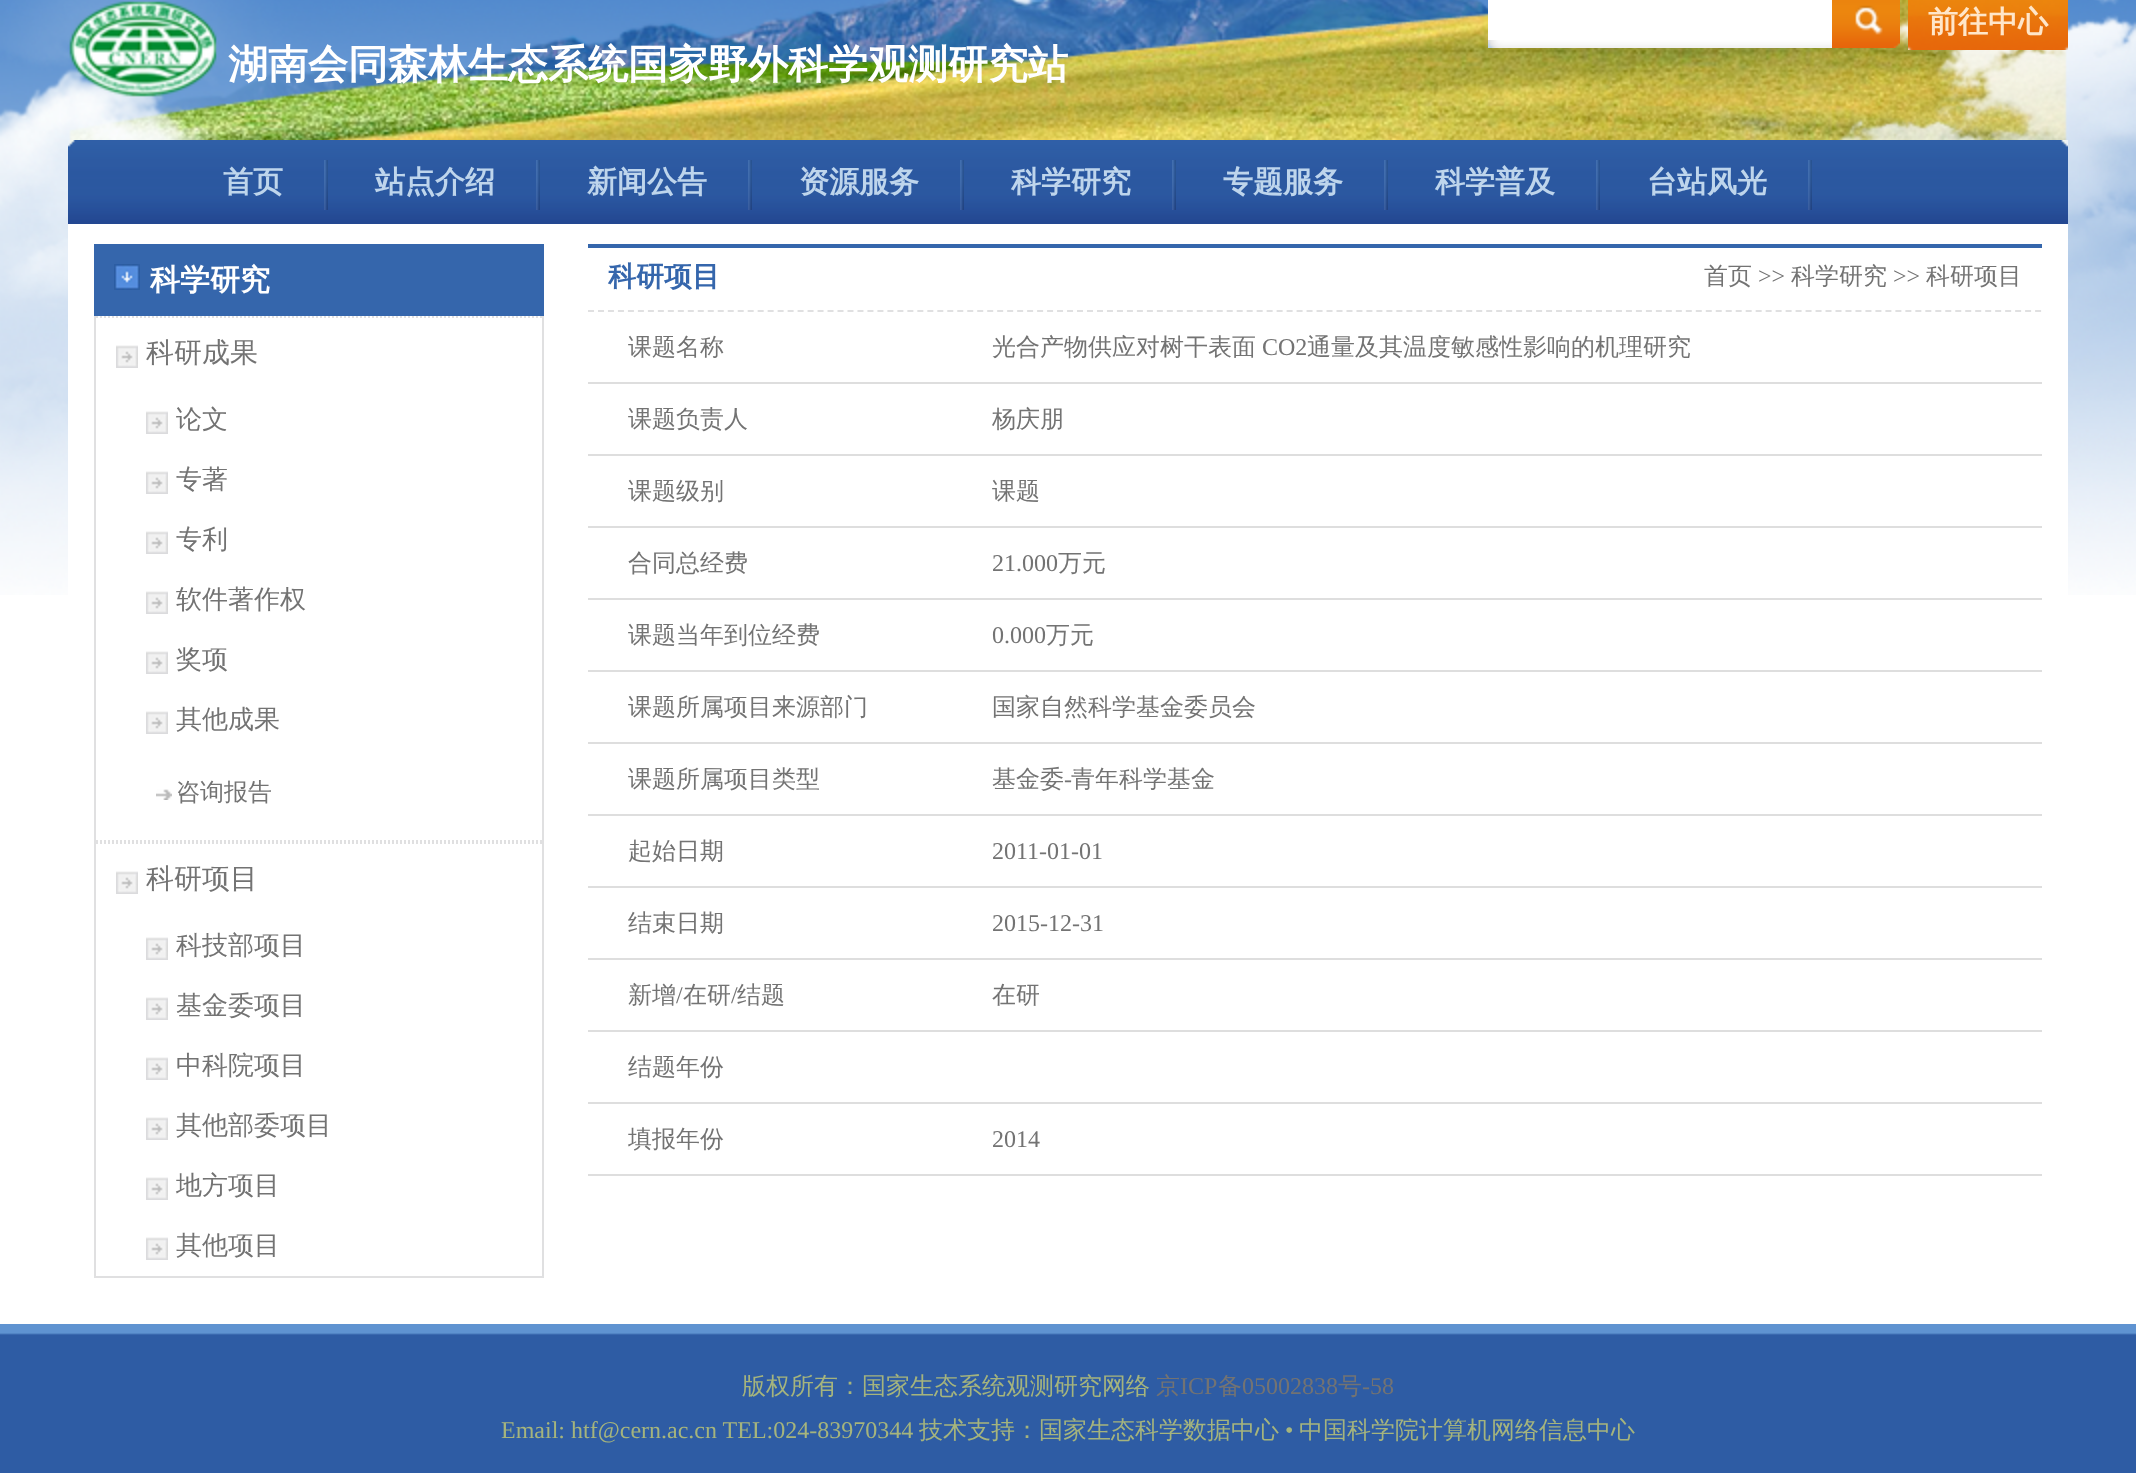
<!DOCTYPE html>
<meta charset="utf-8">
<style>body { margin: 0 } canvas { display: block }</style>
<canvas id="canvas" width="2136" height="1473"></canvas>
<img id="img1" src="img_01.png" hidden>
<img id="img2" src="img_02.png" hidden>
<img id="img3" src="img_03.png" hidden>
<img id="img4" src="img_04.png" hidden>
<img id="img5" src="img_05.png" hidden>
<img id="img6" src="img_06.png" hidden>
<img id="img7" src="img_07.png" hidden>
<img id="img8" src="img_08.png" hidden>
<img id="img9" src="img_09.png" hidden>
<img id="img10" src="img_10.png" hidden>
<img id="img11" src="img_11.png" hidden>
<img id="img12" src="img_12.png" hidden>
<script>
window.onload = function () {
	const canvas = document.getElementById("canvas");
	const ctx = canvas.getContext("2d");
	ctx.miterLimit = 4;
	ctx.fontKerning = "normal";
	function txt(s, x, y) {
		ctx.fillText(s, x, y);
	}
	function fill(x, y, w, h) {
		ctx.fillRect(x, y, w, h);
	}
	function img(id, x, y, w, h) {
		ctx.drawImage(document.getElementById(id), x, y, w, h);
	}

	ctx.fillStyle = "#FFFFFF";
	fill(0, 0, 2136, 1473);
	img("img1", 0, 0, 2136, 595);
	img("img2", 1488, 40, 344, 8);
	fill(1488, 0, 344, 40);
	img("img3", 1832, 0, 68, 48);
	img("img4", 1908, 0, 160, 50);
	img("img5", 68, 140, 8, 84);
	img("img6", 76, 140, 1984, 84);
	img("img7", 324, 160, 4, 50);
	img("img7", 536, 160, 4, 50);
	img("img7", 748, 160, 4, 50);
	img("img7", 960, 160, 4, 50);
	img("img7", 1172, 160, 4, 50);
	img("img7", 1384, 160, 4, 50);
	img("img7", 1596, 160, 4, 50);
	img("img7", 1808, 160, 4, 50);
	img("img8", 2060, 140, 8, 84);
	fill(68, 224, 2000, 371);
	ctx.fillStyle = "#3566AC";
	fill(94, 244, 450, 72);
	img("img9", 114, 264, 26, 26);
	ctx.fillStyle = "#E0E0E1";
	fill(542, 316, 2, 962);
	fill(94, 1276, 450, 2);
	fill(94, 316, 2, 962);
	ctx.beginPath();
	ctx.moveTo(96, 317);
	ctx.lineTo(542, 317);
	ctx.strokeStyle = "#E0E0E1";
	ctx.lineWidth = 2;
	ctx.setLineDash([2, 2]);
	ctx.stroke();
	img("img10", 116, 345, 22, 23);
	img("img10", 146, 411, 22, 23);
	img("img10", 146, 471, 22, 23);
	img("img10", 146, 531, 22, 23);
	img("img10", 146, 591, 22, 23);
	img("img10", 146, 651, 22, 23);
	img("img10", 146, 711, 22, 23);
	ctx.beginPath();
	ctx.moveTo(96, 841);
	ctx.lineTo(542, 841);
	ctx.stroke();
	img("img11", 156, 789, 16, 11);
	ctx.beginPath();
	ctx.moveTo(96, 843);
	ctx.lineTo(542, 843);
	ctx.stroke();
	img("img10", 116, 871, 22, 23);
	img("img10", 146, 937, 22, 23);
	img("img10", 146, 997, 22, 23);
	img("img10", 146, 1057, 22, 23);
	img("img10", 146, 1117, 22, 23);
	img("img10", 146, 1177, 22, 23);
	img("img10", 146, 1237, 22, 23);
	ctx.fillStyle = "#3566AC";
	fill(588, 244, 1454, 4);
	ctx.beginPath();
	ctx.moveTo(588, 311);
	ctx.lineTo(2042, 311);
	ctx.setLineDash([6, 3.98]);
	ctx.stroke();
	ctx.fillStyle = "#DEDEDE";
	fill(588, 382, 1454, 2);
	fill(588, 454, 1454, 2);
	fill(588, 526, 1454, 2);
	fill(588, 598, 1454, 2);
	fill(588, 670, 1454, 2);
	fill(588, 742, 1454, 2);
	fill(588, 814, 1454, 2);
	fill(588, 886, 1454, 2);
	fill(588, 958, 1454, 2);
	fill(588, 1030, 1454, 2);
	fill(588, 1102, 1454, 2);
	fill(588, 1174, 1454, 2);
	img("img12", 0, 1324, 2136, 149);
	ctx.font = "bold 30px WenQuanYi Zen Hei";
	ctx.fillStyle = "#FFE6C9";
	txt("前往中心", 1928, 32);
	ctx.font = "bold 40px WenQuanYi Zen Hei";
	ctx.fillStyle = "#FFFFFF";
	txt("湖南会同森林生态系统国家野外科学观测研究站", 228, 78);
	ctx.font = "bold 30px WenQuanYi Zen Hei";
	ctx.fillStyle = "#BED5EC";
	txt("首页", 223, 192);
	txt("站点介绍", 375, 192);
	txt("新闻公告", 587, 192);
	txt("资源服务", 799, 192);
	txt("科学研究", 1011, 192);
	txt("专题服务", 1223, 192);
	txt("科学普及", 1435, 192);
	txt("台站风光", 1647, 192);
	ctx.fillStyle = "#FFFFFF";
	txt("科学研究", 150, 290);
	ctx.font = "500 28px WenQuanYi Zen Hei";
	ctx.fillStyle = "#737373";
	txt("科研成果", 146, 362);
	ctx.font = "500 26px WenQuanYi Zen Hei";
	txt("论文", 176, 428);
	txt("专著", 176, 488);
	txt("专利", 176, 548);
	txt("软件著作权", 176, 608);
	txt("奖项", 176, 668);
	txt("其他成果", 176, 728);
	ctx.font = "500 24px WenQuanYi Zen Hei";
	txt("咨询报告", 176, 800);
	ctx.font = "500 28px WenQuanYi Zen Hei";
	txt("科研项目", 146, 888);
	ctx.font = "500 26px WenQuanYi Zen Hei";
	txt("科技部项目", 176, 954);
	txt("基金委项目", 176, 1014);
	txt("中科院项目", 176, 1074);
	txt("其他部委项目", 176, 1134);
	txt("地方项目", 176, 1194);
	txt("其他项目", 176, 1254);
	ctx.font = "bold 28px WenQuanYi Zen Hei";
	ctx.fillStyle = "#3566AC";
	txt("科研项目", 608, 286);
	ctx.font = "500 24px WenQuanYi Zen Hei";
	ctx.fillStyle = "#737373";
	txt("首页", 1704, 284);
	ctx.font = "24px Liberation Serif";
	txt(">>", 1758, 284);
	ctx.font = "500 24px WenQuanYi Zen Hei";
	txt("科学研究", 1791, 284);
	ctx.font = "24px Liberation Serif";
	txt(">>", 1893, 284);
	ctx.font = "500 24px WenQuanYi Zen Hei";
	txt("科研项目", 1926, 284);
	txt("课题名称", 628, 355);
	txt("光合产物供应对树干表面", 992, 355);
	ctx.font = "24px Liberation Serif";
	txt("CO2", 1262, 355);
	ctx.font = "500 24px WenQuanYi Zen Hei";
	txt("通量及其温度敏感性影响的机理研究", 1307, 355);
	txt("课题负责人", 628, 427);
	txt("杨庆朋", 992, 427);
	txt("课题级别", 628, 499);
	txt("课题", 992, 499);
	txt("合同总经费", 628, 571);
	ctx.font = "24px Liberation Serif";
	txt("21.000", 992, 571);
	ctx.font = "500 24px WenQuanYi Zen Hei";
	txt("万元", 1058, 571);
	txt("课题当年到位经费", 628, 643);
	ctx.font = "24px Liberation Serif";
	txt("0.000", 992, 643);
	ctx.font = "500 24px WenQuanYi Zen Hei";
	txt("万元", 1046, 643);
	txt("课题所属项目来源部门", 628, 715);
	txt("国家自然科学基金委员会", 992, 715);
	txt("课题所属项目类型", 628, 787);
	txt("基金委", 992, 787);
	ctx.font = "24px Liberation Serif";
	txt("-", 1064, 787);
	ctx.font = "500 24px WenQuanYi Zen Hei";
	txt("青年科学基金", 1071, 787);
	txt("起始日期", 628, 859);
	ctx.font = "24px Liberation Serif";
	txt("2011-01-01", 992, 859);
	ctx.font = "500 24px WenQuanYi Zen Hei";
	txt("结束日期", 628, 931);
	ctx.font = "24px Liberation Serif";
	txt("2015-12-31", 992, 931);
	ctx.font = "500 24px WenQuanYi Zen Hei";
	txt("新增", 628, 1003);
	ctx.font = "24px Liberation Serif";
	txt("/", 676, 1003);
	ctx.font = "500 24px WenQuanYi Zen Hei";
	txt("在研", 683, 1003);
	ctx.font = "24px Liberation Serif";
	txt("/", 731, 1003);
	ctx.font = "500 24px WenQuanYi Zen Hei";
	txt("结题", 737, 1003);
	txt("在研", 992, 1003);
	txt("结题年份", 628, 1075);
	txt("填报年份", 628, 1147);
	ctx.font = "24px Liberation Serif";
	txt("2014", 992, 1147);
	ctx.font = "500 24px WenQuanYi Zen Hei";
	ctx.fillStyle = "#A5B47D";
	txt("版权所有：国家生态系统观测研究网络", 742, 1394);
	ctx.fillStyle = "#737373";
	txt("京", 1156, 1394);
	ctx.font = "24px Liberation Serif";
	txt("ICP", 1180, 1394);
	ctx.font = "500 24px WenQuanYi Zen Hei";
	txt("备", 1218, 1394);
	ctx.font = "24px Liberation Serif";
	txt("05002838", 1242, 1394);
	ctx.font = "500 24px WenQuanYi Zen Hei";
	txt("号", 1338, 1394);
	ctx.font = "24px Liberation Serif";
	txt("-58", 1362, 1394);
	ctx.fillStyle = "#A5B47D";
	txt("Email: htf@cern.ac.cn TEL:024-83970344", 501, 1438);
	ctx.font = "500 24px WenQuanYi Zen Hei";
	txt("技术支持：国家生态科学数据中心", 919, 1438);
	ctx.font = "24px Liberation Serif";
	txt("•", 1285, 1438);
	ctx.font = "500 24px WenQuanYi Zen Hei";
	txt("中国科学院计算机网络信息中心", 1299, 1438);
};
</script>
